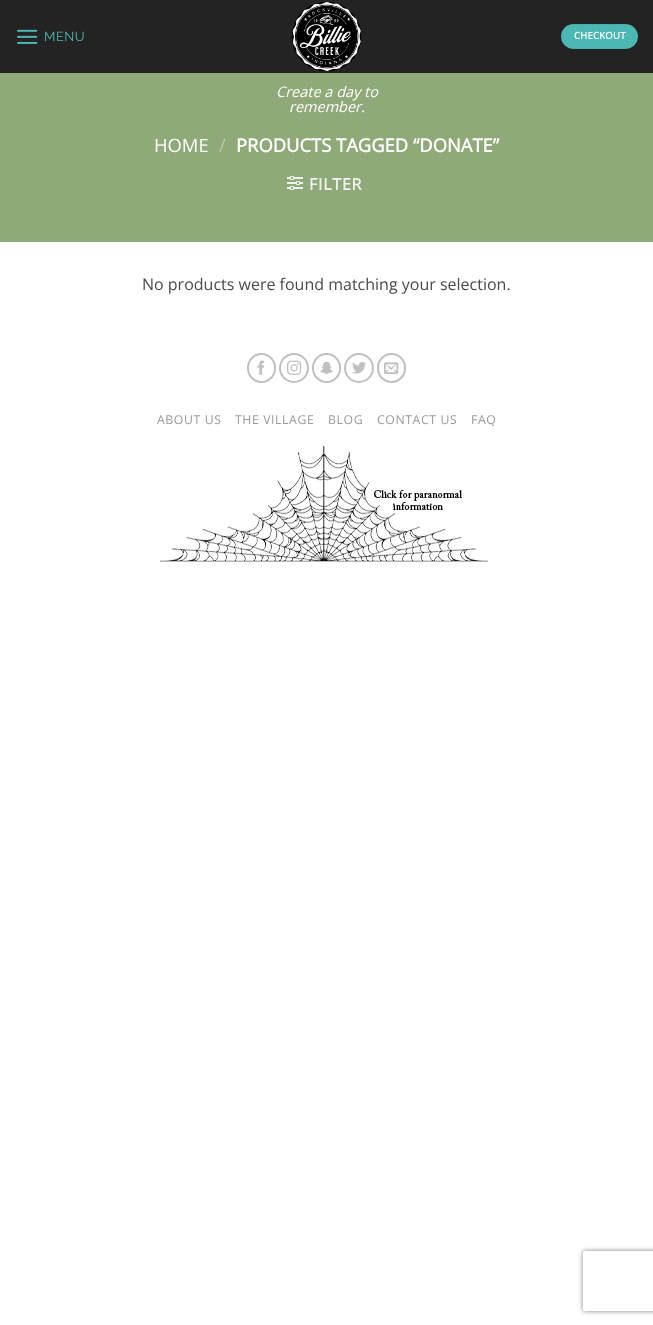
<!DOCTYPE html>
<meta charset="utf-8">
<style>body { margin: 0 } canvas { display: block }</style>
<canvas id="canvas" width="653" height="1325"></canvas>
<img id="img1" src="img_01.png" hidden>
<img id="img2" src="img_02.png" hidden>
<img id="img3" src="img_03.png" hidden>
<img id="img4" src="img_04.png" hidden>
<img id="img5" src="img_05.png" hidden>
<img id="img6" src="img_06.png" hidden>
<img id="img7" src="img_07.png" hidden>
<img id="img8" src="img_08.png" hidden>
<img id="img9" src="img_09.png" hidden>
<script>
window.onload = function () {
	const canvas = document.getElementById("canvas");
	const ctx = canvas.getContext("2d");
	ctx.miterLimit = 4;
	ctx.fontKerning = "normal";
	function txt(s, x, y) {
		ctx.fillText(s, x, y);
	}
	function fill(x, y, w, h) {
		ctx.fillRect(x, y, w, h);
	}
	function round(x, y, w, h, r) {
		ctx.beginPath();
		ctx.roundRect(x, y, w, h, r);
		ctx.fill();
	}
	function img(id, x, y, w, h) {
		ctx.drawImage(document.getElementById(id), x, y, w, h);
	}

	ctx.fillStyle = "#FFFFFF";
	fill(0, 0, 653, 1325);
	ctx.fillStyle = "#232323";
	fill(0, 0, 653, 73);
	img("img1", 17, 29, 21, 15);
	ctx.fillStyle = "#4DB7B3";
	round(561, 24, 77, 25, 12.5);
	ctx.strokeStyle = "rgba(0, 0, 0, 0.05)";
	ctx.strokeRect(561.5, 24.5, 76, 24);
	img("img2", 292, 2, 70, 70);
	ctx.fillStyle = "#8FA978";
	fill(0, 73, 653, 169);
	img("img3", 287, 176, 16, 14);
	ctx.beginPath();
	ctx.roundRect(248, 354, 27, 28, 13.5);
	ctx.strokeStyle = "#C0C0C0";
	ctx.lineWidth = 2;
	ctx.stroke();
	img("img4", 257, 360, 8, 15);
	ctx.beginPath();
	ctx.arc(294, 368, 14, 0, Math.PI * 2);
	ctx.stroke();
	img("img5", 287, 360, 15, 15);
	ctx.beginPath();
	ctx.roundRect(313, 354, 27, 28, 13.5);
	ctx.stroke();
	img("img6", 320, 361, 13, 13);
	ctx.beginPath();
	ctx.arc(359, 368, 14, 0, Math.PI * 2);
	ctx.stroke();
	img("img7", 352, 362, 14, 12);
	ctx.beginPath();
	ctx.roundRect(378, 354, 27, 28, 13.5);
	ctx.stroke();
	img("img8", 384, 362, 15, 12);
	img("img9", 159, 445, 329, 117);
	ctx.save();
	ctx.beginPath();
	ctx.moveTo(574, 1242);
	ctx.lineTo(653, 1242);
	ctx.lineTo(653, 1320);
	ctx.lineTo(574, 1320);
	ctx.closePath();
	ctx.moveTo(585, 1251);
	ctx.lineTo(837, 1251);
	ctx.bezierCurveTo(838, 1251, 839, 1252, 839, 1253);
	ctx.lineTo(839, 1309);
	ctx.bezierCurveTo(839, 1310, 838, 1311, 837, 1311);
	ctx.lineTo(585, 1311);
	ctx.bezierCurveTo(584, 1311, 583, 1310, 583, 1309);
	ctx.lineTo(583, 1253);
	ctx.bezierCurveTo(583, 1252, 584, 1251, 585, 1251);
	ctx.closePath();
	ctx.clip("evenodd");
	ctx.fillStyle = "#808080";
	ctx.filter = "blur(2.5px)";
	ctx.beginPath();
	ctx.roundRect(583, 1251, 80, 60, 2);
	ctx.fill();
	ctx.filter = "none";
	ctx.restore();
	ctx.letterSpacing = "0.5px";
	ctx.font = "100 13px Raleway";
	ctx.fillStyle = "#4DB7B3";
	txt("MENU", 44, 41);
	ctx.letterSpacing = "0.25px";
	ctx.font = "bold 9.5px Open Sans";
	ctx.fillStyle = "#FFFFFF";
	txt("CHECKOUT", 574, 39);
	ctx.letterSpacing = "0px";
	ctx.font = "italic 14.5px Open Sans";
	txt("Create a day to", 276, 97);
	txt("remember.", 289, 112);
	ctx.font = "18.4px Open Sans";
	txt("HOME", 154, 152);
	ctx.fillStyle = "#B6C7A7";
	txt("/", 219, 152);
	ctx.font = "bold 18.4px Open Sans";
	ctx.fillStyle = "#FFFFFF";
	txt("PRODUCTS TAGGED “DONATE”", 236, 152);
	ctx.letterSpacing = "0.75px";
	ctx.font = "bold 16px Open Sans";
	ctx.fillStyle = "#F1F1F1";
	txt("FILTER", 309, 190);
	ctx.letterSpacing = "0px";
	ctx.font = "16px Open Sans";
	ctx.fillStyle = "#4A4A4A";
	txt("No products were found matching your selection.", 142, 290);
	ctx.letterSpacing = "0.6px";
	ctx.font = "12.25px Open Sans";
	ctx.fillStyle = "#999999";
	txt("ABOUT US", 157, 424);
	txt("THE VILLAGE", 235, 424);
	txt("BLOG", 328, 424);
	txt("CONTACT US", 377, 424);
	txt("FAQ", 471, 424);
};
</script>
